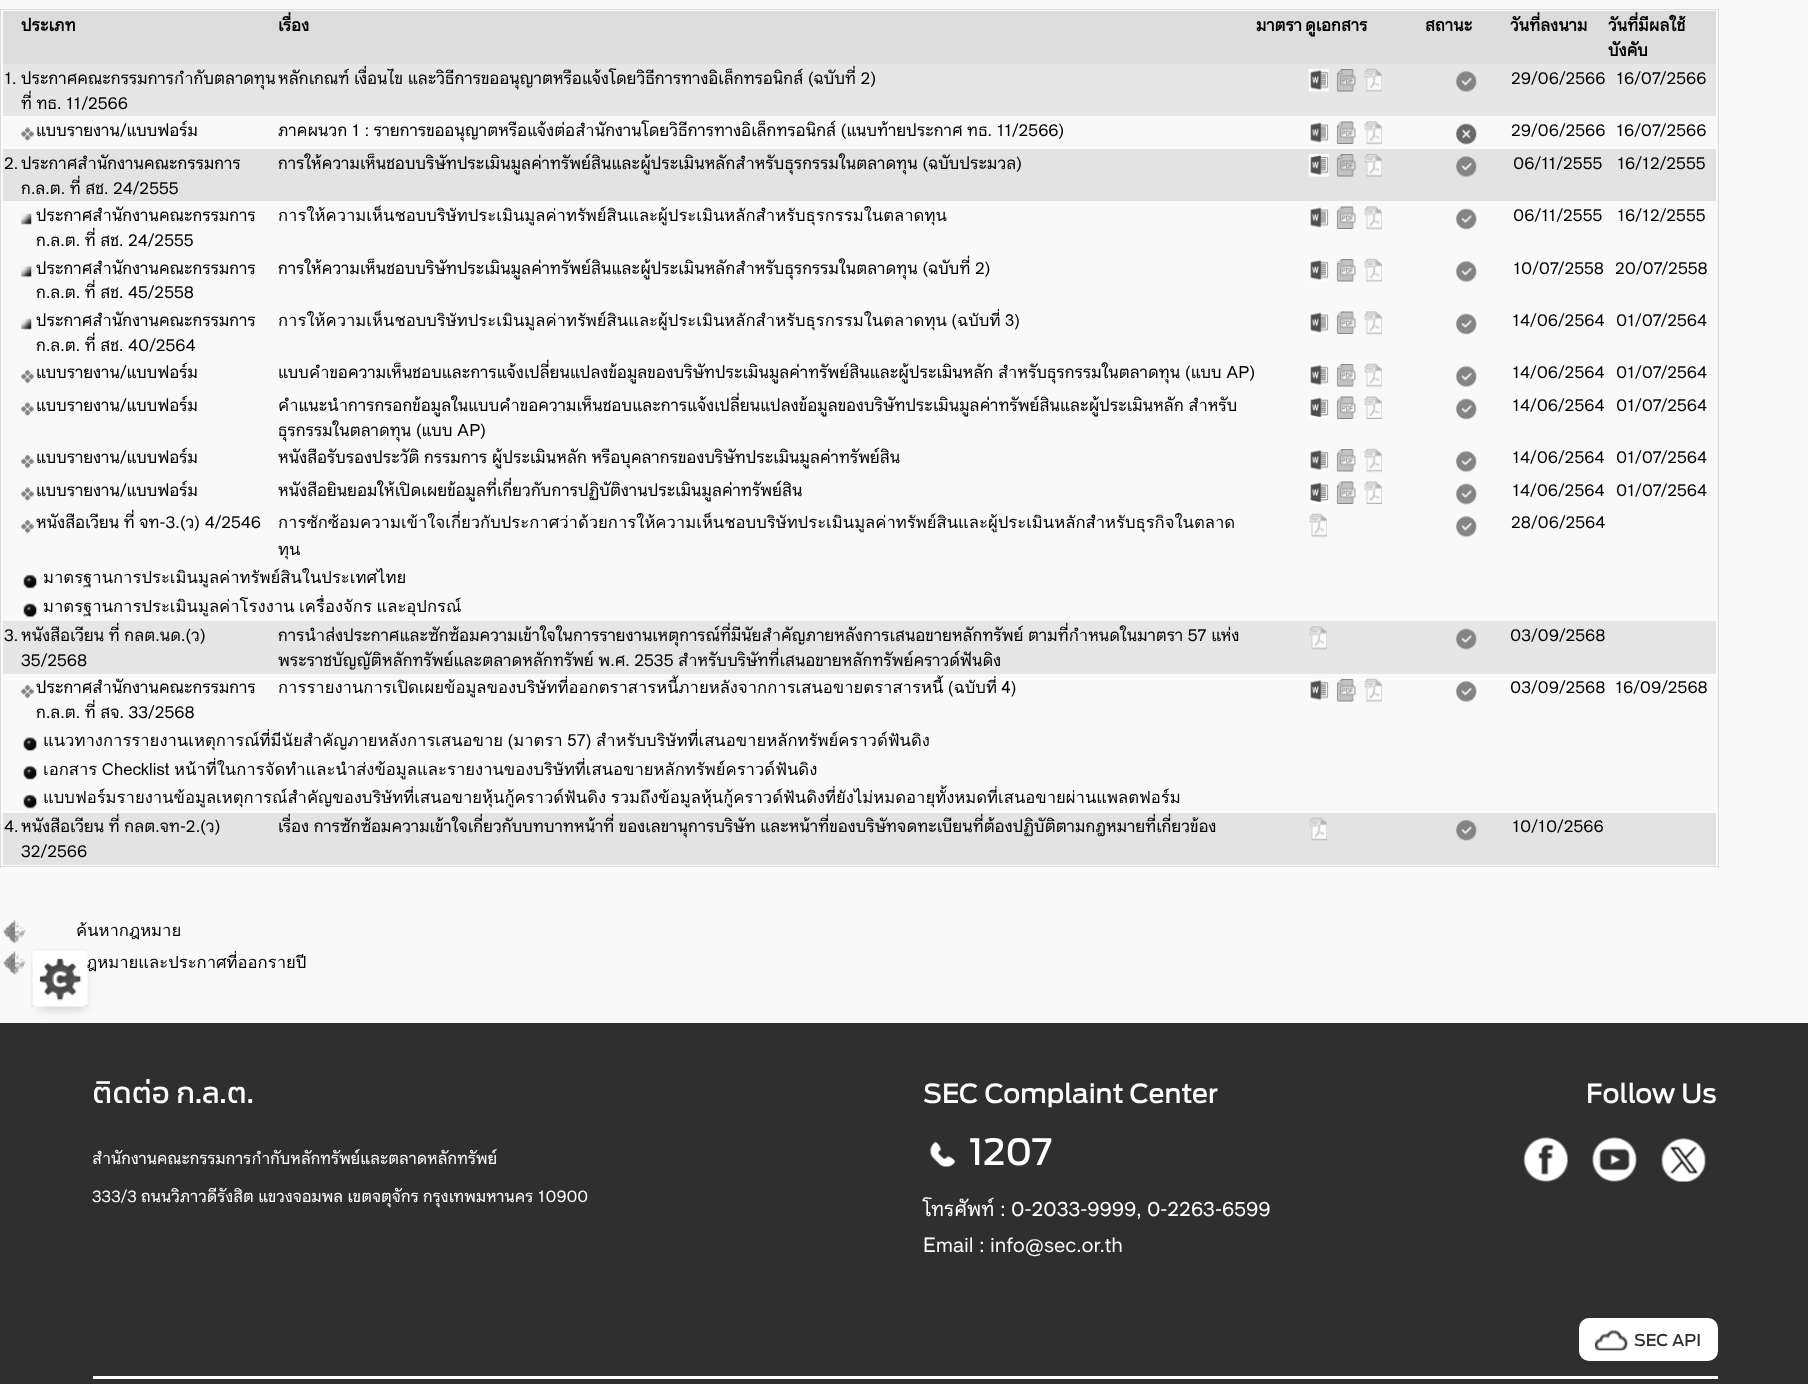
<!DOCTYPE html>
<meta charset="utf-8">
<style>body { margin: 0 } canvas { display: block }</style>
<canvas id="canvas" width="1808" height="1384"></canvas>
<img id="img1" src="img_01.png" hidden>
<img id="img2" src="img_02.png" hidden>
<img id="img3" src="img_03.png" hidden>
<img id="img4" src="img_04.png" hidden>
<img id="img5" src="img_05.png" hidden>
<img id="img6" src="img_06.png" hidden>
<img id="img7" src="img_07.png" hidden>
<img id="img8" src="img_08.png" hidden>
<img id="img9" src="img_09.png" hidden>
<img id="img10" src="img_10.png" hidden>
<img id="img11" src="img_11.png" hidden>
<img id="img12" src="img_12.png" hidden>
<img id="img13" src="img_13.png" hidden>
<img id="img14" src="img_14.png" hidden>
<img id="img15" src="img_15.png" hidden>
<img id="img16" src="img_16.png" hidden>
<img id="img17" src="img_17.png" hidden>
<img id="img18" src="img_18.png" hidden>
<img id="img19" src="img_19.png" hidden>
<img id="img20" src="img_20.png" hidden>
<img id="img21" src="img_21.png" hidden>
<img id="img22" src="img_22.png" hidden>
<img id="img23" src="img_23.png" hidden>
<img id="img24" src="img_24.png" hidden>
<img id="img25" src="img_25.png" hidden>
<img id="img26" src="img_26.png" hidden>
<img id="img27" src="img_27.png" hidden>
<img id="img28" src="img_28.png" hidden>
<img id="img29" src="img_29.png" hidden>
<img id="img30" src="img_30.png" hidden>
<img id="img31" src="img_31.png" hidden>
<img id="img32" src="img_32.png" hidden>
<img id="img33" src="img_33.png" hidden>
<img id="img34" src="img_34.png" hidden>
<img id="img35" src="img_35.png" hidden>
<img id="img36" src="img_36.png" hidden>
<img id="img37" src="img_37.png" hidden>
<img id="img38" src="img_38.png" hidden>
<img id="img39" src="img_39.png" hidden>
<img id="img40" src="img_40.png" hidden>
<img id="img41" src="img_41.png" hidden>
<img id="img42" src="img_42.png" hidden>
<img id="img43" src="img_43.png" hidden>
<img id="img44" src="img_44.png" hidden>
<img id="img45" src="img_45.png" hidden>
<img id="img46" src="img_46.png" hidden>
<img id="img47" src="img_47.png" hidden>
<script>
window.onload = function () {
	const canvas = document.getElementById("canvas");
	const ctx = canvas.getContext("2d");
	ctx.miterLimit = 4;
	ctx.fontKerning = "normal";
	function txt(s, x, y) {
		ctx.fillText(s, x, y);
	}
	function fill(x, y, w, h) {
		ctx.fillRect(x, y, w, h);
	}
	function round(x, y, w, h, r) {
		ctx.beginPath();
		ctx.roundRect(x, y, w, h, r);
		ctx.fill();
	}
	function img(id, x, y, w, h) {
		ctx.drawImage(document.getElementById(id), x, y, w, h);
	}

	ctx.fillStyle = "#F9F9F9";
	fill(0, 0, 1808, 1384);
	ctx.fillStyle = "#DCDCDC";
	fill(0, 9, 1719, 1);
	fill(1718, 9, 1, 859);
	fill(0, 866, 1719, 1);
	fill(0, 9, 1, 859);
	fill(3, 11, 1713, 53);
	ctx.fillStyle = "#E6E6E6";
	fill(3, 64, 1713, 52);
	img("img1", 1308, 68, 21, 24);
	img("img2", 1336, 69, 20, 23);
	img("img3", 1364, 68, 18, 24);
	img("img4", 1456, 71, 21, 22);
	img("img5", 21, 127, 13, 14);
	img("img6", 1309, 122, 20, 22);
	img("img7", 1336, 121, 20, 23);
	img("img8", 1364, 121, 18, 24);
	img("img9", 1456, 123, 21, 22);
	ctx.fillStyle = "#E3E3E3";
	fill(3, 149, 1713, 52);
	img("img10", 1308, 154, 21, 23);
	img("img11", 1336, 154, 20, 23);
	img("img12", 1364, 154, 18, 23);
	img("img13", 1456, 156, 21, 22);
	img("img14", 21, 213, 11, 12);
	img("img15", 1309, 207, 20, 22);
	img("img7", 1336, 206, 20, 23);
	img("img16", 1364, 206, 18, 24);
	img("img17", 1456, 208, 21, 22);
	img("img18", 21, 266, 11, 12);
	img("img19", 1309, 259, 20, 22);
	img("img20", 1336, 259, 20, 23);
	img("img21", 1364, 258, 18, 25);
	img("img22", 1456, 261, 21, 22);
	img("img14", 21, 318, 11, 12);
	img("img6", 1309, 312, 20, 22);
	img("img7", 1336, 311, 20, 23);
	img("img8", 1364, 311, 18, 24);
	img("img23", 1456, 313, 21, 22);
	img("img24", 21, 370, 13, 14);
	img("img19", 1309, 364, 20, 22);
	img("img20", 1336, 364, 20, 23);
	img("img21", 1364, 363, 18, 25);
	img("img22", 1456, 366, 21, 22);
	img("img5", 21, 402, 13, 14);
	img("img25", 1309, 397, 20, 22);
	img("img7", 1336, 396, 20, 23);
	img("img26", 1364, 396, 18, 23);
	img("img23", 1456, 398, 21, 22);
	img("img27", 21, 455, 13, 14);
	img("img28", 1309, 449, 20, 22);
	img("img20", 1336, 449, 20, 23);
	img("img29", 1364, 448, 18, 25);
	img("img30", 1456, 451, 21, 22);
	img("img5", 21, 487, 13, 14);
	img("img25", 1309, 482, 20, 22);
	img("img7", 1336, 481, 20, 23);
	img("img26", 1364, 481, 18, 23);
	img("img23", 1456, 483, 21, 22);
	img("img24", 21, 520, 13, 14);
	img("img21", 1309, 513, 18, 25);
	img("img31", 1456, 516, 21, 22);
	img("img32", 23, 574, 14, 15);
	img("img33", 23, 603, 14, 15);
	ctx.fillStyle = "#E6E6E6";
	fill(3, 621, 1713, 53);
	img("img34", 1309, 626, 18, 24);
	img("img35", 1456, 628, 21, 22);
	img("img24", 21, 685, 13, 14);
	img("img19", 1309, 679, 20, 22);
	img("img20", 1336, 679, 20, 23);
	img("img21", 1364, 678, 18, 25);
	img("img22", 1456, 681, 21, 22);
	img("img36", 23, 737, 14, 15);
	img("img37", 23, 766, 14, 14);
	img("img32", 23, 794, 14, 15);
	ctx.fillStyle = "#E3E3E3";
	fill(3, 813, 1713, 52);
	img("img38", 1309, 817, 18, 24);
	img("img39", 1456, 820, 21, 21);
	img("img40", 3, 920, 23, 24);
	img("img41", 3, 951, 23, 24);
	ctx.fillStyle = "#2F2F2F";
	fill(0, 1023, 1808, 361);
	img("img42", 929, 1141, 26, 26);
	img("img43", 1523, 1137, 45, 45);
	img("img44", 1592, 1137, 45, 45);
	img("img45", 1661, 1138, 45, 44);
	ctx.fillStyle = "#FFFFFF";
	round(1579, 1318, 139, 43, 10);
	img("img46", 1594, 1330, 34, 21);
	fill(93, 1376, 1625, 3);
	ctx.fillStyle = "rgba(0, 0, 0, 0.15)";
	ctx.filter = "blur(5px)";
	ctx.beginPath();
	ctx.rect(39, 964, 46, 46);
	ctx.fill();
	ctx.filter = "none";
	ctx.font = "bold 16.67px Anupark";
	ctx.fillStyle = "#000000";
	txt("ประเภท", 21, 31);
	txt("เรื่อง", 278, 31);
	txt("มาตรา", 1256, 31);
	txt("ดูเอกสาร", 1305, 31);
	txt("สถานะ", 1425, 31);
	txt("วันที่ลงนาม", 1510, 31);
	txt("วันที่มีผลใช้", 1608, 31);
	txt("บังคับ", 1608, 56);
	ctx.font = "16.67px Anupark";
	txt("1. ประกาศคณะกรรมการกำกับตลาดทุน", 4, 84);
	txt("หลักเกณฑ์ เงื่อนไข และวิธีการขออนุญาตหรือแจ้งโดยวิธีการทางอิเล็กทรอนิกส์ (ฉบับที่ 2)", 278, 84);
	txt("29/06/2566", 1511, 84);
	txt("16/07/2566", 1616, 84);
	txt("ที่ ทธ. 11/2566", 21, 109);
	txt("แบบรายงาน/แบบฟอร์ม", 36, 136);
	txt("ภาคผนวก 1 : รายการขออนุญาตหรือแจ้งต่อสำนักงานโดยวิธีการทางอิเล็กทรอนิกส์ (แนบท้ายประกาศ ทธ. 11/2566)", 278, 136);
	txt("29/06/2566", 1511, 136);
	txt("16/07/2566", 1616, 136);
	txt("2.", 4, 169);
	txt("ประกาศสำนักงานคณะกรรมการ", 21, 169);
	txt("ก.ล.ต. ที่ สช. 24/2555", 21, 194);
	txt("การให้ความเห็นชอบบริษัทประเมินมูลค่าทรัพย์สินและผู้ประเมินหลักสำหรับธุรกรรมในตลาดทุน (ฉบับประมวล)", 278, 169);
	txt("06/11/2555", 1513, 169);
	txt("16/12/2555", 1617, 169);
	txt("ประกาศสำนักงานคณะกรรมการ", 36, 221);
	txt("ก.ล.ต. ที่ สช. 24/2555", 36, 246);
	ctx.font = "16.67px Loma";
	txt("การให้ความเห็นชอบบริษัทประเมินมูลค่าทรัพย์สินและผู้ประเมินหลักสำหรับธุรกรรมในตลาดทุน", 278, 221);
	ctx.font = "16.67px Anupark";
	txt("06/11/2555", 1513, 221);
	txt("16/12/2555", 1617, 221);
	txt("ประกาศสำนักงานคณะกรรมการ", 36, 274);
	txt("ก.ล.ต. ที่ สช. 45/2558", 36, 298);
	txt("การให้ความเห็นชอบบริษัทประเมินมูลค่าทรัพย์สินและผู้ประเมินหลักสำหรับธุรกรรมในตลาดทุน (ฉบับที่ 2)", 278, 274);
	txt("10/07/2558", 1513, 274);
	txt("20/07/2558", 1615, 274);
	txt("ประกาศสำนักงานคณะกรรมการ", 36, 326);
	txt("ก.ล.ต. ที่ สช. 40/2564", 36, 351);
	ctx.wordSpacing = "-1px";
	ctx.font = "16.67px Loma";
	txt("การให้ความเห็นชอบบริษัทประเมินมูลค่าทรัพย์สินและผู้ประเมินหลักสำหรับธุรกรรมในตลาดทุน (ฉบับที่ 3)", 278, 326);
	ctx.wordSpacing = "0px";
	ctx.font = "16.67px Anupark";
	txt("14/06/2564", 1512, 326);
	txt("01/07/2564", 1616, 326);
	txt("แบบรายงาน/แบบฟอร์ม", 36, 378);
	txt("แบบคำขอความเห็นชอบและการแจ้งเปลี่ยนแปลงข้อมูลของบริษัทประเมินมูลค่าทรัพย์สินและผู้ประเมินหลัก สำหรับธุรกรรมในตลาดทุน (แบบ AP)", 278, 378);
	txt("14/06/2564", 1512, 378);
	txt("01/07/2564", 1616, 378);
	txt("แบบรายงาน/แบบฟอร์ม", 36, 411);
	txt("คำแนะนำการกรอกข้อมูลในแบบคำขอความเห็นชอบและการแจ้งเปลี่ยนแปลงข้อมูลของบริษัทประเมินมูลค่าทรัพย์สินและผู้ประเมินหลัก สำหรับ", 278, 411);
	txt("ธุรกรรมในตลาดทุน (แบบ AP)", 278, 436);
	txt("14/06/2564", 1512, 411);
	txt("01/07/2564", 1616, 411);
	txt("แบบรายงาน/แบบฟอร์ม", 36, 463);
	txt("หนังสือรับรองประวัติ กรรมการ ผู้ประเมินหลัก หรือบุคลากรของบริษัทประเมินมูลค่าทรัพย์สิน", 278, 463);
	txt("14/06/2564", 1512, 463);
	txt("01/07/2564", 1616, 463);
	txt("แบบรายงาน/แบบฟอร์ม", 36, 496);
	txt("หนังสือยินยอมให้เปิดเผยข้อมูลที่เกี่ยวกับการปฏิบัติงานประเมินมูลค่าทรัพย์สิน", 278, 496);
	txt("14/06/2564", 1512, 496);
	txt("01/07/2564", 1616, 496);
	txt("หนังสือเวียน ที่ จท-3.(ว) 4/2546", 36, 528);
	ctx.font = "16.67px Loma";
	txt("การซักซ้อมความเข้าใจเกี่ยวกับประกาศว่าด้วยการให้ความเห็นชอบบริษัทประเมินมูลค่าทรัพย์สินและผู้ประเมินหลักสำหรับธุรกิจในตลาด", 278, 528);
	txt("ทุน", 278, 555);
	ctx.font = "16.67px Anupark";
	txt("28/06/2564", 1511, 528);
	ctx.font = "16.67px Loma";
	txt("มาตรฐานการประเมินมูลค่าทรัพย์สินในประเทศไทย", 43, 583);
	ctx.wordSpacing = "-1px";
	txt("มาตรฐานการประเมินมูลค่าโรงงาน เครื่องจักร และอุปกรณ์", 43, 612);
	ctx.wordSpacing = "0px";
	ctx.font = "16.67px Anupark";
	txt("3.", 4, 641);
	txt("หนังสือเวียน ที่ กลต.นด.(ว)", 21, 641);
	txt("35/2568", 21, 666);
	txt("การนำส่งประกาศและซักซ้อมความเข้าใจในการรายงานเหตุการณ์ที่มีนัยสำคัญภายหลังการเสนอขายหลักทรัพย์ ตามที่กำหนดในมาตรา 57 แห่ง", 278, 641);
	txt("พระราชบัญญัติหลักทรัพย์และตลาดหลักทรัพย์ พ.ศ. 2535 สำหรับบริษัทที่เสนอขายหลักทรัพย์คราวด์ฟันดิง", 278, 666);
	txt("03/09/2568", 1510, 641);
	txt("ประกาศสำนักงานคณะกรรมการ", 36, 693);
	txt("ก.ล.ต. ที่ สจ. 33/2568", 36, 718);
	ctx.wordSpacing = "-1px";
	ctx.font = "16.67px Loma";
	txt("การรายงานการเปิดเผยข้อมูลของบริษัทที่ออกตราสารหนี้ภายหลังจากการเสนอขายตราสารหนี้ (ฉบับที่ 4)", 278, 693);
	ctx.wordSpacing = "0px";
	ctx.font = "16.67px Anupark";
	txt("03/09/2568", 1510, 693);
	txt("16/09/2568", 1615, 693);
	ctx.wordSpacing = "-1px";
	ctx.font = "16.67px Loma";
	txt("แนวทางการรายงานเหตุการณ์ที่มีนัยสำคัญภายหลังการเสนอขาย (มาตรา 57) สำหรับบริษัทที่เสนอขายหลักทรัพย์คราวด์ฟันดิง", 43, 746);
	txt("เอกสาร Checklist หน้าที่ในการจัดทำและนำส่งข้อมูลและรายงานของบริษัทที่เสนอขายหลักทรัพย์คราวด์ฟันดิง", 43, 775);
	txt("แบบฟอร์มรายงานข้อมูลเหตุการณ์สำคัญของบริษัทที่เสนอขายหุ้นกู้คราวด์ฟันดิง รวมถึงข้อมูลหุ้นกู้คราวด์ฟันดิงที่ยังไม่หมดอายุทั้งหมดที่เสนอขายผ่านแพลตฟอร์ม", 43, 803);
	ctx.wordSpacing = "0px";
	ctx.font = "16.67px Anupark";
	txt("4.", 4, 832);
	txt("หนังสือเวียน ที่ กลต.จท-2.(ว)", 21, 832);
	txt("32/2566", 21, 857);
	txt("เรื่อง การซักซ้อมความเข้าใจเกี่ยวกับบทบาทหน้าที่ ของเลขานุการบริษัท และหน้าที่ของบริษัทจดทะเบียนที่ต้องปฏิบัติตามกฎหมายที่เกี่ยวข้อง", 278, 832);
	txt("10/10/2566", 1512, 832);
	ctx.font = "16.67px Loma";
	txt("ค้นหากฎหมาย", 76, 936);
	txt("ฎหมายและประกาศที่ออกรายปี", 86, 968);
	ctx.font = "500 26.25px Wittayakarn";
	ctx.fillStyle = "#FFFFFF";
	txt("ติดต่อ ก.ล.ต.", 92, 1103);
	ctx.font = "16.25px Anupark";
	txt("สำนักงานคณะกรรมการกำกับหลักทรัพย์และตลาดหลักทรัพย์", 92, 1164);
	txt("333/3 ถนนวิภาวดีรังสิต แขวงจอมพล เขตจตุจักร กรุงเทพมหานคร 10900", 92, 1202);
	ctx.font = "500 26.25px Wittayakarn";
	txt("SEC Complaint Center", 923, 1103);
	ctx.font = "500 36px Wittayakarn";
	txt("1207", 969, 1165);
	ctx.font = "20px Anupark";
	txt("โทรศัพท์ : 0-2033-9999, 0-2263-6599", 923, 1216);
	txt("Email : info@sec.or.th", 923, 1252);
	ctx.font = "500 26.25px Wittayakarn";
	txt("Follow Us", 1586, 1103);
	ctx.font = "500 16.25px Wittayakarn";
	ctx.fillStyle = "#2F2F2F";
	txt("SEC API", 1634, 1346);
	img("img47", 31, 949, 57, 58);
};
</script>
